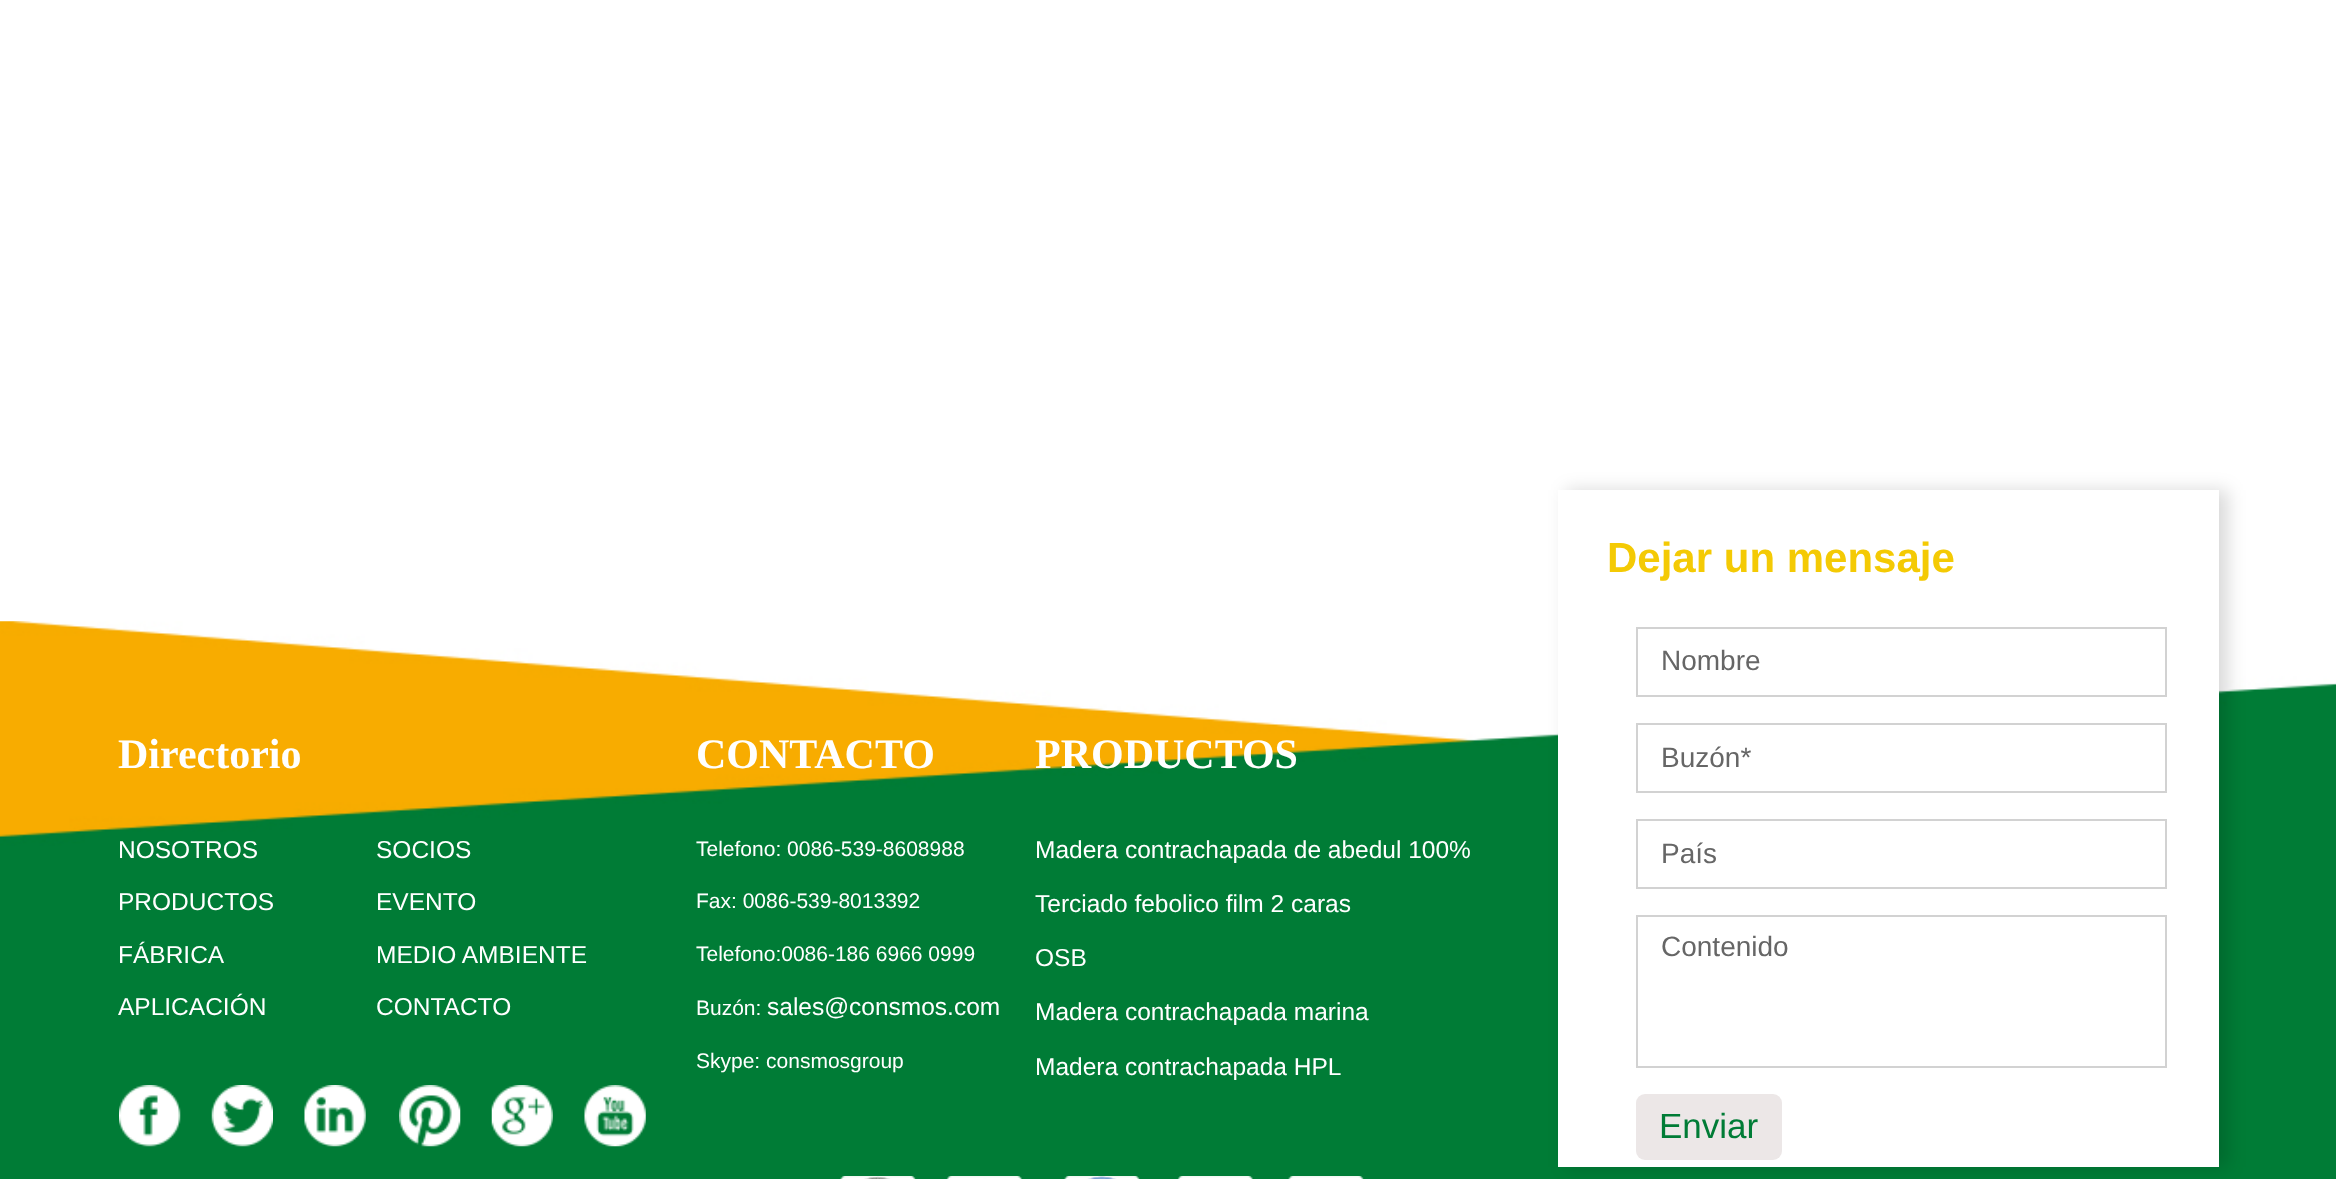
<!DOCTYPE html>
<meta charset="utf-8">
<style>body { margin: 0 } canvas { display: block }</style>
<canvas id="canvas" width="2336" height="1179"></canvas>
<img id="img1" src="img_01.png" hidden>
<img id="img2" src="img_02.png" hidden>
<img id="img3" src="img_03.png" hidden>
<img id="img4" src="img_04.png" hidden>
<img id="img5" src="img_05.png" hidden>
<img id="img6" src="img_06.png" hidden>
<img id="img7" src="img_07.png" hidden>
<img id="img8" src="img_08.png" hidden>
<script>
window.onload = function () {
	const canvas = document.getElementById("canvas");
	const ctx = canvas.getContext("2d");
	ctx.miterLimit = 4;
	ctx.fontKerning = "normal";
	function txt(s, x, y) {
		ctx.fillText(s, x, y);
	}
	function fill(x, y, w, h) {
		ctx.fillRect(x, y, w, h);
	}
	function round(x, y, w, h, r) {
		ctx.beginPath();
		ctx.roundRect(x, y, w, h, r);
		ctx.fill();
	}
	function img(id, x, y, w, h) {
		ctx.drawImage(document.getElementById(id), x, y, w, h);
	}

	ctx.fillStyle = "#FFFFFF";
	fill(0, 0, 2336, 1179);
	img("img1", 0, 621, 2336, 558);
	img("img2", 119, 1085, 62, 62);
	img("img3", 211, 1085, 62, 62);
	img("img4", 304, 1085, 62, 62);
	img("img5", 399, 1085, 62, 62);
	img("img6", 491, 1085, 62, 62);
	img("img7", 584, 1085, 62, 62);
	ctx.fillStyle = "rgba(0, 0, 0, 0.15)";
	ctx.filter = "blur(9px)";
	ctx.beginPath();
	ctx.rect(1566, 490, 662, 677);
	ctx.fill();
	ctx.filter = "none";
	ctx.fillStyle = "#FFFFFF";
	fill(1558, 490, 661, 677);
	ctx.strokeStyle = "#D2D2D2";
	ctx.lineWidth = 2;
	ctx.strokeRect(1637, 628, 529, 68);
	ctx.strokeRect(1637, 724, 529, 68);
	ctx.strokeRect(1637, 820, 529, 68);
	ctx.strokeRect(1637, 916, 529, 151);
	ctx.fillStyle = "#ECE7E7";
	round(1636, 1094, 146, 66, 9);
	img("img8", 840, 1176, 524, 3);
	ctx.font = "bold 42px Liberation Serif";
	ctx.fillStyle = "#FFFFFF";
	txt("Directorio", 118, 768);
	ctx.font = "24.5px Liberation Sans";
	txt("NOSOTROS", 118, 858);
	txt("PRODUCTOS", 118, 910);
	txt("FÁBRICA", 118, 963);
	txt("APLICACIÓN", 118, 1015);
	txt("SOCIOS", 376, 858);
	txt("EVENTO", 376, 910);
	txt("MEDIO AMBIENTE", 376, 963);
	txt("CONTACTO", 376, 1015);
	ctx.font = "bold 42px Liberation Serif";
	txt("CONTACTO", 696, 768);
	ctx.font = "21px Liberation Sans";
	txt("Telefono: 0086-539-8608988", 696, 856);
	txt("Fax: 0086-539-8013392", 696, 908);
	txt("Telefono:0086-186 6966 0999", 696, 961);
	txt("Buzón:", 696, 1015);
	ctx.font = "24.5px Liberation Sans";
	txt("sales@consmos.com", 767, 1015);
	ctx.font = "21px Liberation Sans";
	txt("Skype: consmosgroup", 696, 1068);
	ctx.font = "bold 42px Liberation Serif";
	txt("PRODUCTOS", 1035, 768);
	ctx.font = "24.5px Liberation Sans";
	txt("Madera contrachapada de abedul 100%", 1035, 858);
	txt("Terciado febolico film 2 caras", 1035, 912);
	txt("OSB", 1035, 966);
	txt("Madera contrachapada marina", 1035, 1020);
	txt("Madera contrachapada HPL", 1035, 1075);
	ctx.font = "bold 42px Liberation Sans";
	ctx.fillStyle = "#F4CA04";
	txt("Dejar un mensaje", 1607, 572);
	ctx.font = "28px Liberation Sans";
	ctx.fillStyle = "#666666";
	txt("Nombre", 1661, 670);
	txt("Buzón*", 1661, 767);
	txt("País", 1661, 863);
	txt("Contenido", 1661, 956);
	ctx.font = "35px Liberation Sans";
	ctx.fillStyle = "#007C36";
	txt("Enviar", 1659, 1138);
};
</script>
